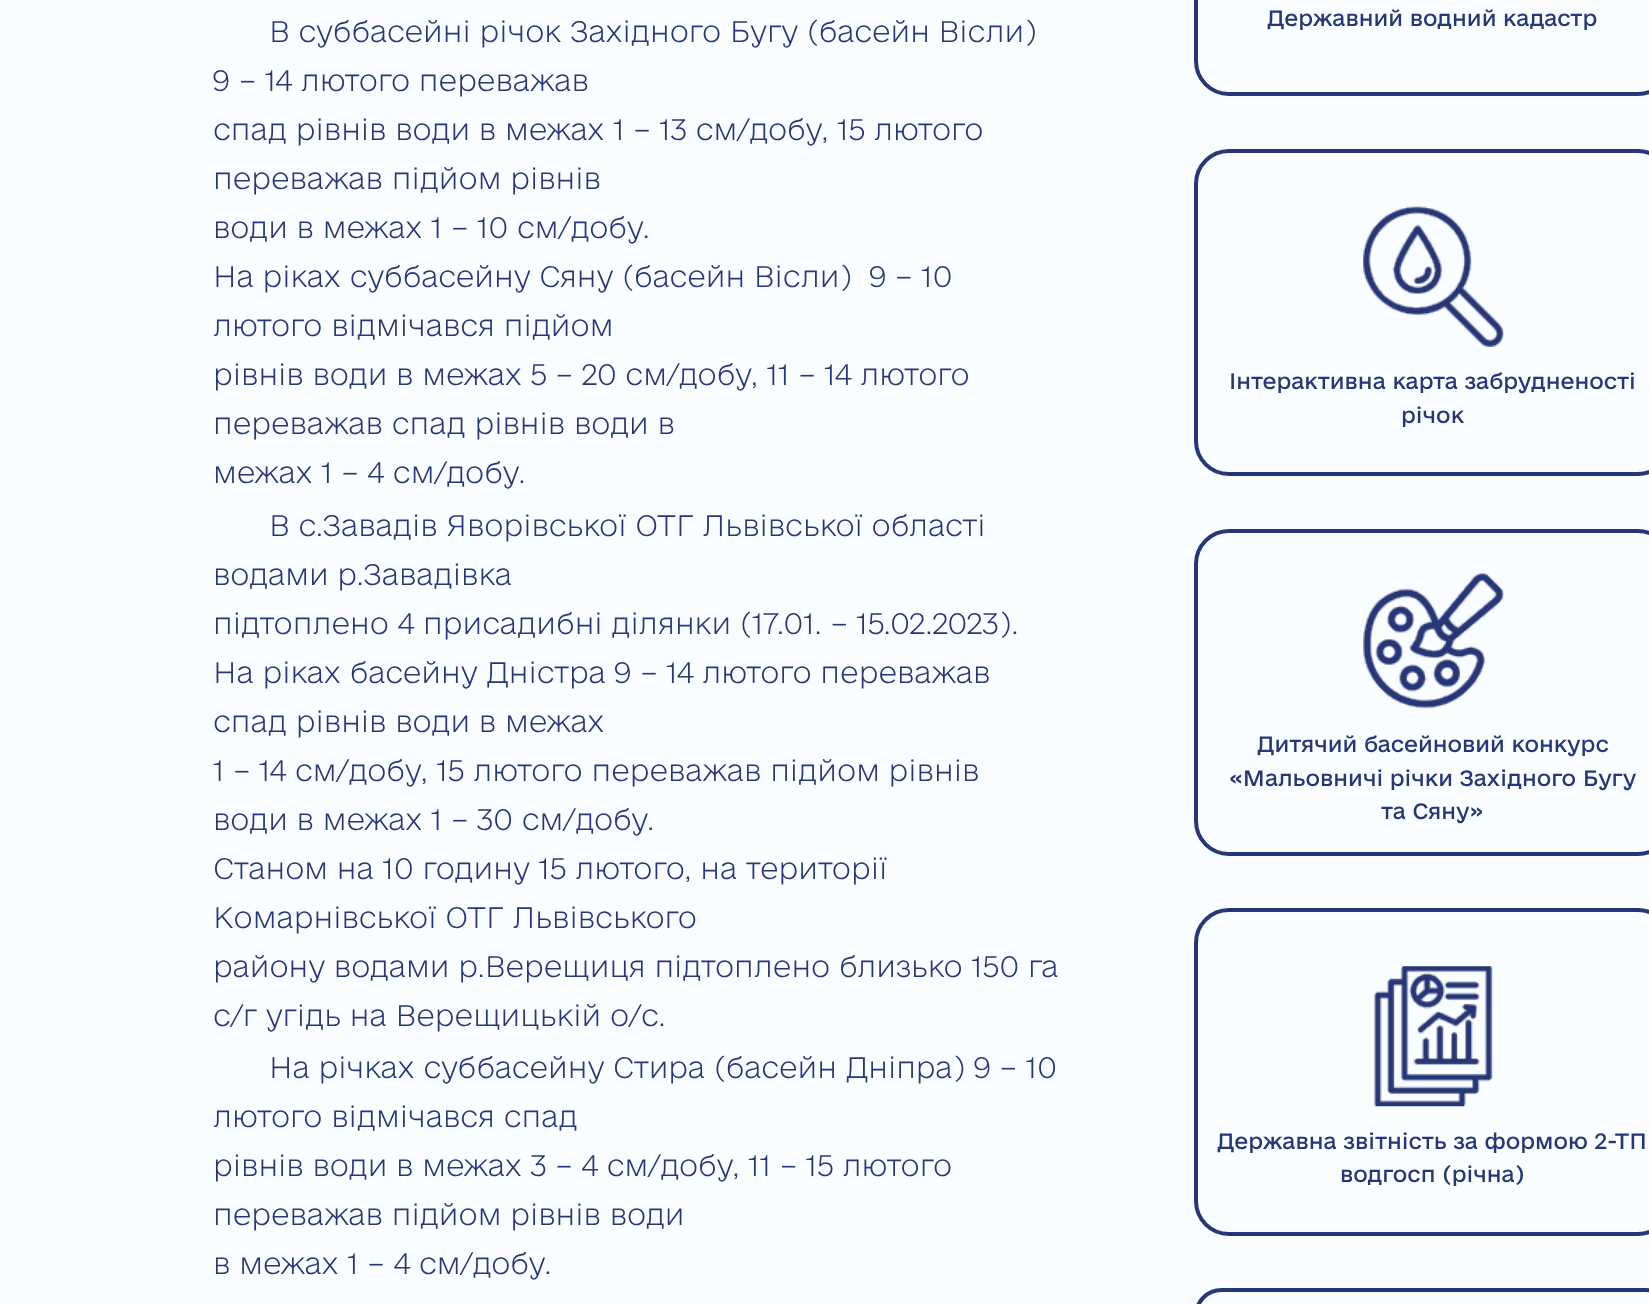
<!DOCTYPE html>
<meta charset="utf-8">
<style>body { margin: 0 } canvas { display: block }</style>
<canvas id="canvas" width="1649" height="1304"></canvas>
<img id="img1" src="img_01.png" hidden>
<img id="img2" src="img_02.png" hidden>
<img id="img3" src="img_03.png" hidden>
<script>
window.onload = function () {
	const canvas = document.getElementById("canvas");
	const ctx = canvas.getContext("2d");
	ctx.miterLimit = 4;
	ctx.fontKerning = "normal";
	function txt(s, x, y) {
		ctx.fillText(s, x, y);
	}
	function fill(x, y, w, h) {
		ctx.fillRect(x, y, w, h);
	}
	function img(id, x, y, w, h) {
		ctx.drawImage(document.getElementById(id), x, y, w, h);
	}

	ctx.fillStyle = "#F9FDFF";
	fill(0, 0, 1649, 1304);
	ctx.beginPath();
	ctx.roundRect(1196, -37, 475, 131, 33);
	ctx.strokeStyle = "#263676";
	ctx.lineWidth = 4;
	ctx.stroke();
	ctx.beginPath();
	ctx.roundRect(1196, 151, 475, 323, 33);
	ctx.stroke();
	img("img1", 1363, 206, 141, 141);
	ctx.beginPath();
	ctx.roundRect(1196, 531, 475, 323, 33);
	ctx.stroke();
	img("img2", 1363, 573, 141, 136);
	ctx.beginPath();
	ctx.roundRect(1196, 910, 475, 324, 33);
	ctx.stroke();
	img("img3", 1374, 966, 119, 141);
	ctx.beginPath();
	ctx.roundRect(1196, 1290, 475, 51, 33);
	ctx.stroke();
	ctx.font = "100 28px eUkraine";
	ctx.fillStyle = "#263676";
	txt("В суббасейні річок Західного Бугу (басейн Вісли)", 269, 42);
	txt("9 – 14 лютого переважав", 213, 91);
	txt("спад рівнів води в межах 1 – 13 см/добу, 15 лютого", 213, 140);
	txt("переважав підйом рівнів", 213, 189);
	txt("води в межах 1 – 10 см/добу.", 213, 238);
	txt("На ріках суббасейну Сяну (басейн Вісли)  9 – 10", 213, 287);
	txt("лютого відмічався підйом", 213, 336);
	txt("рівнів води в межах 5 – 20 см/добу, 11 – 14 лютого", 213, 385);
	txt("переважав спад рівнів води в", 213, 434);
	txt("межах 1 – 4 см/добу.", 213, 483);
	txt("В с.Завадів Яворівської ОТГ Львівської області", 269, 536);
	txt("водами р.Завадівка", 213, 585);
	txt("підтоплено 4 присадибні ділянки (17.01. – 15.02.2023).", 213, 634);
	txt("На ріках басейну Дністра 9 – 14 лютого переважав", 213, 683);
	txt("спад рівнів води в межах", 213, 732);
	txt("1 – 14 см/добу, 15 лютого переважав підйом рівнів", 213, 781);
	txt("води в межах 1 – 30 см/добу.", 213, 830);
	txt("Станом на 10 годину 15 лютого, на території", 213, 879);
	txt("Комарнівської ОТГ Львівського", 213, 928);
	txt("району водами р.Верещиця підтоплено близько 150 га", 213, 977);
	txt("с/г угідь на Верещицькій о/с.", 213, 1026);
	txt("На річках суббасейну Стира (басейн Дніпра) 9 – 10", 269, 1078);
	txt("лютого відмічався спад", 213, 1127);
	txt("рівнів води в межах 3 – 4 см/добу, 11 – 15 лютого", 213, 1176);
	txt("переважав підйом рівнів води", 213, 1225);
	txt("в межах 1 – 4 см/добу.", 213, 1274);
	ctx.font = "21px eUkraine";
	txt("Державний водний кадастр", 1267, 26);
	txt("Інтерактивна карта забрудненості", 1229, 389);
	txt("річок", 1401, 423);
	txt("Дитячий басейновий конкурс", 1257, 752);
	txt("«Мальовничі річки Західного Бугу", 1229, 786);
	txt("та Сяну»", 1381, 819);
	txt("Державна звітність за формою 2-ТП", 1217, 1149);
	txt("водгосп (річна)", 1340, 1182);
};
</script>
